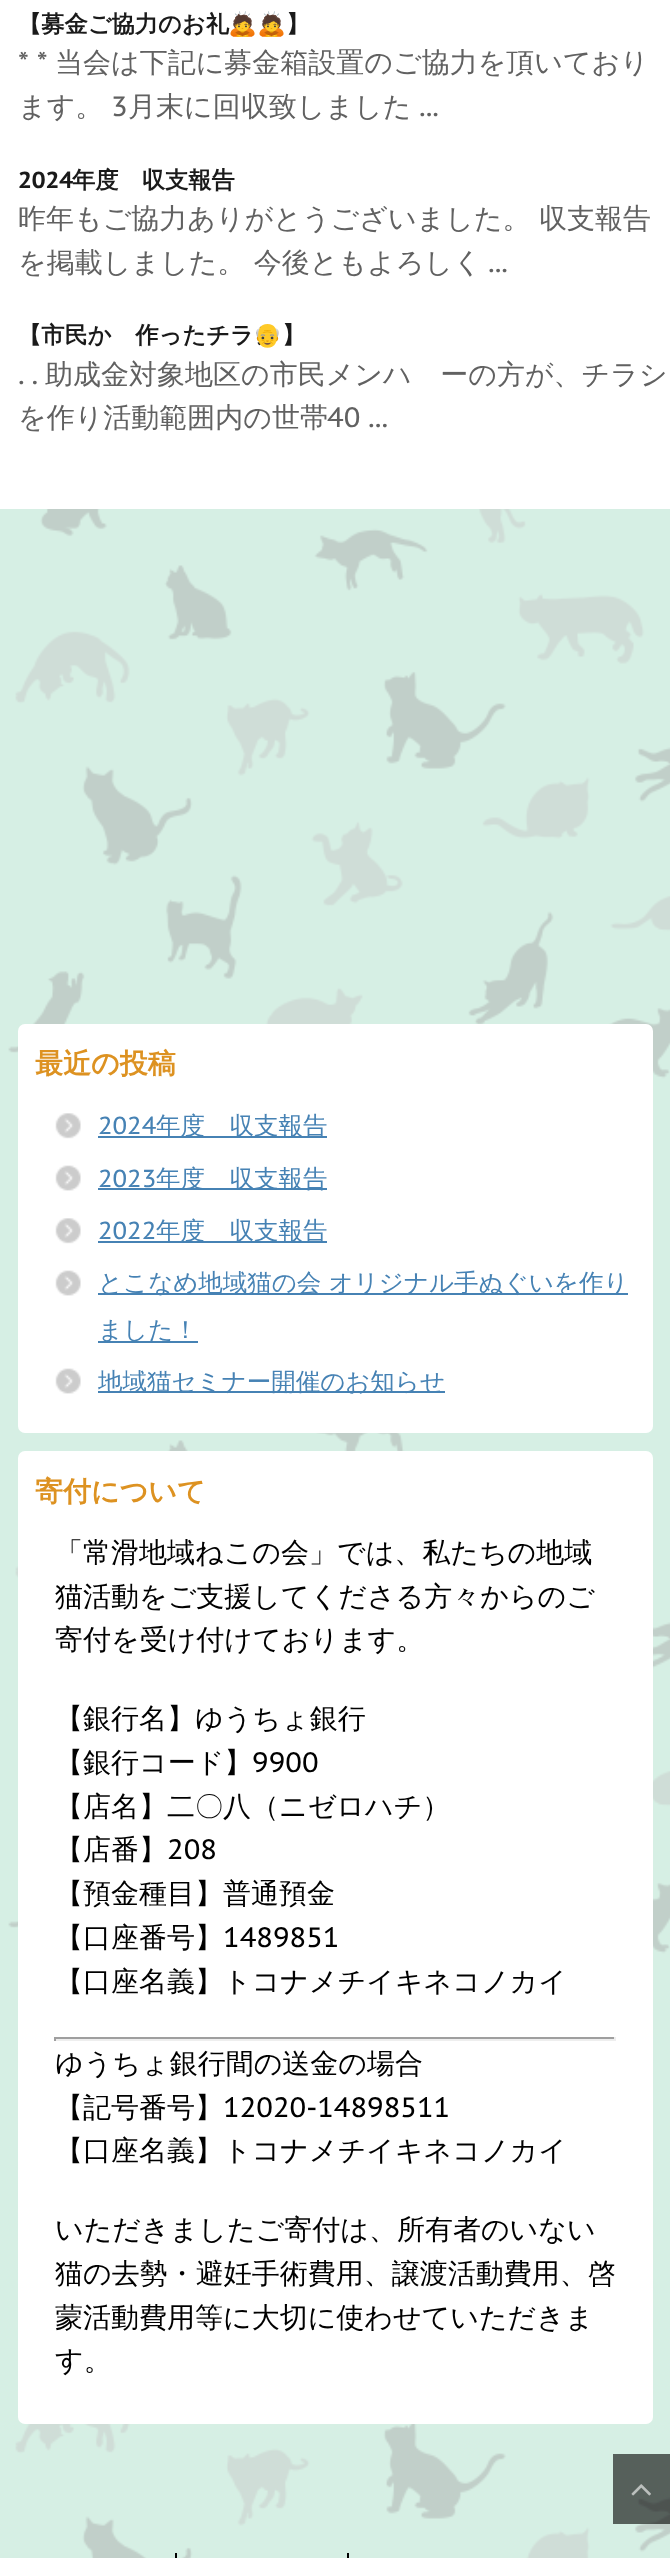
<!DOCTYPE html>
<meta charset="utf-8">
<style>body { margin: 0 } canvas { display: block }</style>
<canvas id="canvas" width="670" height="2558"></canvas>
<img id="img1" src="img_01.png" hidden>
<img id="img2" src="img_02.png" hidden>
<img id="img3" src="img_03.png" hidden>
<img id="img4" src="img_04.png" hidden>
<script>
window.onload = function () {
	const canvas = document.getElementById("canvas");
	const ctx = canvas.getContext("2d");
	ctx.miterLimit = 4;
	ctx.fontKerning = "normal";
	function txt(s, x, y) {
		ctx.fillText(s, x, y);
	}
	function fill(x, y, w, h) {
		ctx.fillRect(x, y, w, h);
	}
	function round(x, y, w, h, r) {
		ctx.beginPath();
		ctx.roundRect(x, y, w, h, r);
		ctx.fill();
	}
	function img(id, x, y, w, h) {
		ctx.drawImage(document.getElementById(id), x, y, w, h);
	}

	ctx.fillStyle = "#FFFFFF";
	fill(0, 0, 670, 2558);
	img("img1", 0, 509, 670, 2049);
	round(18, 1024, 635, 409, 7);
	img("img2", 55, 1113, 26, 26);
	ctx.fillStyle = "#4682B4";
	fill(98, 1136, 229, 2);
	img("img3", 55, 1165, 26, 26);
	fill(98, 1188, 229, 2);
	img("img2", 55, 1218, 26, 26);
	fill(98, 1241, 229, 2);
	img("img3", 55, 1270, 26, 26);
	fill(98, 1293, 530, 2);
	fill(98, 1341, 100, 2);
	img("img3", 55, 1368, 26, 26);
	fill(98, 1391, 347, 2);
	ctx.fillStyle = "#FFFFFF";
	round(18, 1451, 635, 973, 7);
	ctx.fillStyle = "#9F9F9F";
	fill(54, 2037, 562, 2);
	ctx.fillStyle = "#EEEEEE";
	fill(614, 2037, 2, 4);
	fill(54, 2039, 562, 2);
	ctx.fillStyle = "#9F9F9F";
	fill(54, 2037, 2, 4);
	ctx.fillStyle = "#000000";
	fill(175, 2553, 2, 5);
	fill(347, 2553, 2, 5);
	ctx.fillStyle = "rgba(0, 0, 0, 0.6)";
	fill(613, 2454, 57, 70);
	img("img4", 631, 2484, 20, 12);
	ctx.font = "bold 23.25px WenQuanYi Zen Hei";
	ctx.fillStyle = "#1A1A1A";
	txt("【募金ご協力のお礼", 18, 32);
	ctx.font = "bold 23.25px Noto Color Emoji";
	txt("🙇🙇", 228, 32);
	ctx.font = "bold 23.25px WenQuanYi Zen Hei";
	txt("】", 286, 32);
	ctx.font = "28px PT Sans Caption";
	ctx.fillStyle = "#616161";
	txt("* *", 18, 72);
	ctx.font = "500 28px WenQuanYi Zen Hei";
	txt("当会は下記に募金箱設置のご協力を頂いており", 55, 72);
	txt("ます。", 18, 116);
	ctx.font = "28px PT Sans Caption";
	txt("3", 111, 116);
	ctx.font = "500 28px WenQuanYi Zen Hei";
	txt("月末に回収致しました", 128, 116);
	ctx.font = "28px PT Sans Caption";
	txt("...", 419, 116);
	ctx.font = "bold 23.25px PT Sans Caption";
	ctx.fillStyle = "#1A1A1A";
	txt("2024", 18, 188);
	ctx.font = "bold 23.25px WenQuanYi Zen Hei";
	txt("年度　収支報告", 72, 188);
	ctx.font = "500 28px WenQuanYi Zen Hei";
	ctx.fillStyle = "#616161";
	txt("昨年もご協力ありがとうございました。 収支報告", 18, 228);
	txt("を掲載しました。 今後ともよろしく", 18, 272);
	ctx.font = "28px PT Sans Caption";
	txt("...", 488, 272);
	ctx.font = "bold 23.25px WenQuanYi Zen Hei";
	ctx.fillStyle = "#1A1A1A";
	txt("【市民が作ったチラシ", 18, 343);
	ctx.font = "bold 23.25px Noto Color Emoji";
	txt("👴", 253, 343);
	ctx.font = "bold 23.25px WenQuanYi Zen Hei";
	txt("】", 282, 343);
	ctx.font = "28px PT Sans Caption";
	ctx.fillStyle = "#616161";
	txt(". .", 18, 384);
	ctx.font = "500 28px WenQuanYi Zen Hei";
	txt("助成金対象地区の市民メンバーの方が、チラシ", 45, 384);
	txt("を作り活動範囲内の世帯", 18, 427);
	ctx.font = "28px PT Sans Caption";
	txt("40 ...", 327, 427);
	ctx.font = "bold 28px WenQuanYi Zen Hei";
	ctx.fillStyle = "#DD9221";
	txt("最近の投稿", 35, 1073);
	ctx.font = "24.5px PT Sans Caption";
	ctx.fillStyle = "#4682B4";
	txt("2024", 98, 1134);
	ctx.font = "500 24.5px WenQuanYi Zen Hei";
	txt("年度　収支報告", 156, 1134);
	ctx.font = "24.5px PT Sans Caption";
	txt("2023", 98, 1187);
	ctx.font = "500 24.5px WenQuanYi Zen Hei";
	txt("年度　収支報告", 156, 1187);
	ctx.font = "24.5px PT Sans Caption";
	txt("2022", 98, 1239);
	ctx.font = "500 24.5px WenQuanYi Zen Hei";
	txt("年度　収支報告", 156, 1239);
	txt("とこなめ地域猫の会 オリジナル手ぬぐいを作り", 98, 1291);
	txt("ました！", 98, 1338);
	txt("地域猫セミナー開催のお知らせ", 98, 1390);
	ctx.font = "bold 28px WenQuanYi Zen Hei";
	ctx.fillStyle = "#DD9221";
	txt("寄付について", 35, 1501);
	ctx.font = "500 28px WenQuanYi Zen Hei";
	ctx.fillStyle = "#000000";
	txt("「常滑地域ねこの会」では、私たちの地域", 55, 1562);
	txt("猫活動をご支援してくださる方々からのご", 55, 1606);
	txt("寄付を受け付けております。", 55, 1649);
	txt("【銀行名】ゆうちょ銀行", 55, 1728);
	txt("【銀行コード】", 55, 1772);
	ctx.font = "28px PT Sans Caption";
	txt("9900", 252, 1772);
	ctx.font = "500 28px WenQuanYi Zen Hei";
	txt("【店名】二〇八（ニゼロハチ）", 55, 1816);
	txt("【店番】", 55, 1859);
	ctx.font = "28px PT Sans Caption";
	txt("208", 167, 1859);
	ctx.font = "500 28px WenQuanYi Zen Hei";
	txt("【預金種目】普通預金", 55, 1903);
	txt("【口座番号】", 55, 1947);
	ctx.font = "28px PT Sans Caption";
	txt("1489851", 223, 1947);
	ctx.font = "500 28px WenQuanYi Zen Hei";
	txt("【口座名義】トコナメチイキネコノカイ", 55, 1991);
	txt("ゆうちょ銀行間の送金の場合", 55, 2073);
	txt("【記号番号】", 55, 2117);
	ctx.font = "28px PT Sans Caption";
	txt("12020-14898511", 223, 2117);
	ctx.font = "500 28px WenQuanYi Zen Hei";
	txt("【口座名義】トコナメチイキネコノカイ", 55, 2160);
	txt("いただきましたご寄付は、所有者のいない", 55, 2239);
	txt("猫の去勢・避妊手術費用、譲渡活動費用、啓", 55, 2283);
	txt("蒙活動費用等に大切に使わせていただきま", 55, 2327);
	txt("す。", 55, 2370);
};
</script>
